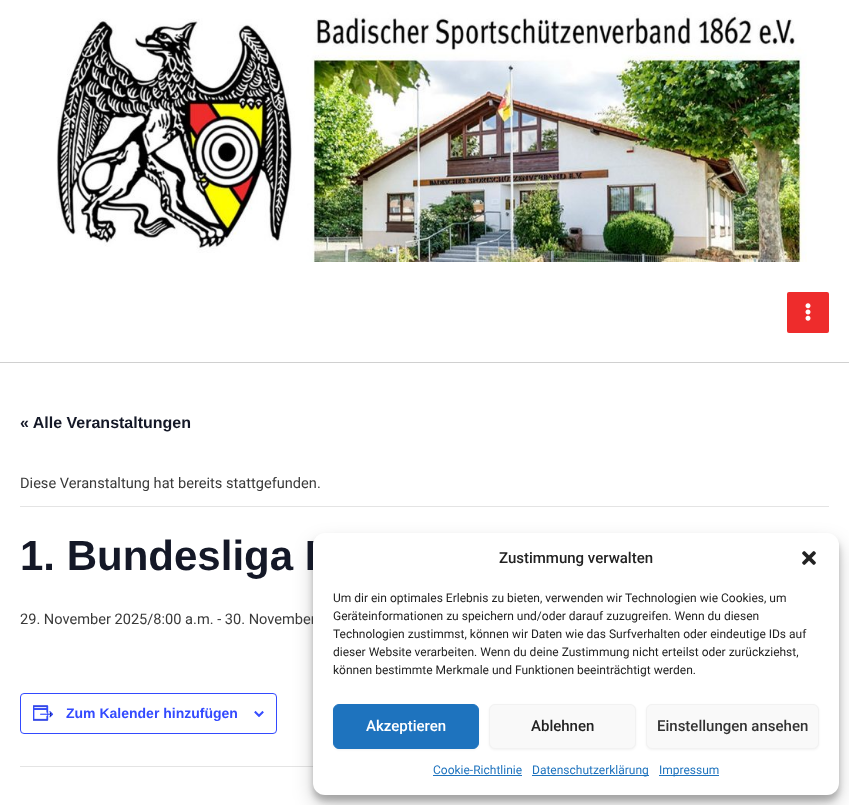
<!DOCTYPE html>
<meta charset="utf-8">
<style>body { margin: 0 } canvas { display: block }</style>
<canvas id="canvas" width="849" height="805"></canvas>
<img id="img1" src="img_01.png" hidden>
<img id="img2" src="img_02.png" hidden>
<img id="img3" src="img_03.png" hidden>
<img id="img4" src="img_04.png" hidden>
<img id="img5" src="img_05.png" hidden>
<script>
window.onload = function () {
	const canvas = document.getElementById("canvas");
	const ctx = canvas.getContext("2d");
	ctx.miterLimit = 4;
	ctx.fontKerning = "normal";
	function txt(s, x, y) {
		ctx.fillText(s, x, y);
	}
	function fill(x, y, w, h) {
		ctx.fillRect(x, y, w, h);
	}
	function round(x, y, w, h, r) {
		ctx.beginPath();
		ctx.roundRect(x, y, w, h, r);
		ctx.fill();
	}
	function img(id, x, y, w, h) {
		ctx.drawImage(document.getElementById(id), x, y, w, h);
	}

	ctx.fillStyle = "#FFFFFF";
	fill(0, 0, 849, 805);
	img("img1", 56, 12, 751, 250);
	ctx.fillStyle = "#D0D0D0";
	fill(0, 362, 849, 1);
	ctx.fillStyle = "#EE2C2C";
	round(787, 292, 42, 41, 2);
	img("img2", 805, 303, 6, 18);
	ctx.fillStyle = "#E4E4E4";
	fill(20, 506, 809, 1);
	ctx.beginPath();
	ctx.roundRect(20.5, 693.5, 256, 40, 3.5);
	ctx.strokeStyle = "#334AFF";
	ctx.stroke();
	img("img3", 33, 705, 21, 16);
	img("img4", 254, 711, 10, 6);
	fill(20, 766, 293, 1);
	ctx.fillStyle = "rgba(0, 0, 0, 0.23)";
	ctx.filter = "blur(3px)";
	ctx.beginPath();
	ctx.roundRect(313, 539, 526, 262, 12);
	ctx.fill();
	ctx.filter = "none";
	ctx.fillStyle = "rgba(0, 0, 0, 0.19)";
	ctx.filter = "blur(10px)";
	ctx.beginPath();
	ctx.roundRect(313, 543, 526, 262, 12);
	ctx.fill();
	ctx.filter = "none";
	ctx.font = "bold 16px Liberation Sans";
	ctx.fillStyle = "#141827";
	txt("« Alle Veranstaltungen", 20, 428);
	ctx.font = "14.6px Roboto";
	ctx.fillStyle = "#3A3A3A";
	txt("Diese Veranstaltung hat bereits stattgefunden.", 20, 488);
	ctx.font = "bold 42px Liberation Sans";
	ctx.fillStyle = "#141827";
	txt("1. Bundesliga L", 20, 570);
	ctx.font = "14.6px Roboto";
	ctx.fillStyle = "#3A3A3A";
	txt("29. November 2025/8:00 a.m. - 30. November", 20, 624);
	ctx.font = "bold 14px Liberation Sans";
	ctx.fillStyle = "#334AFF";
	txt("Zum Kalender hinzufügen", 66, 718);
	ctx.fillStyle = "#FFFFFF";
	round(313, 533, 526, 262, 12);
	ctx.font = "500 15px Roboto";
	ctx.fillStyle = "#222222";
	txt("Zustimmung verwalten", 499, 563);
	img("img5", 802, 551, 14, 14);
	ctx.font = "12px Roboto";
	txt("Um dir ein optimales Erlebnis zu bieten, verwenden wir Technologien wie Cookies, um", 333, 602);
	txt("Geräteinformationen zu speichern und/oder darauf zuzugreifen. Wenn du diesen", 333, 620);
	txt("Technologien zustimmst, können wir Daten wie das Surfverhalten oder eindeutige IDs auf", 333, 638);
	txt("dieser Website verarbeiten. Wenn du deine Zustimmung nicht erteilst oder zurückziehst,", 333, 656);
	txt("können bestimmte Merkmale und Funktionen beeinträchtigt werden.", 333, 674);
	ctx.fillStyle = "rgba(0, 0, 0, 0.05)";
	ctx.filter = "blur(1px)";
	ctx.beginPath();
	ctx.roundRect(333, 705, 146, 45, 6);
	ctx.fill();
	ctx.filter = "none";
	ctx.fillStyle = "#1E73BE";
	ctx.beginPath();
	ctx.roundRect(333.5, 704.5, 145, 44, 5.5);
	ctx.fill();
	ctx.strokeStyle = "#1E73BE";
	ctx.stroke();
	ctx.font = "500 15px Roboto";
	ctx.fillStyle = "#FFFFFF";
	txt("Akzeptieren", 366, 731);
	ctx.fillStyle = "rgba(0, 0, 0, 0.05)";
	ctx.filter = "blur(1px)";
	ctx.beginPath();
	ctx.roundRect(489, 705, 147, 45, 6);
	ctx.fill();
	ctx.filter = "none";
	ctx.fillStyle = "#F9F9F9";
	ctx.beginPath();
	ctx.roundRect(489.5, 704.5, 146, 44, 5.5);
	ctx.fill();
	ctx.strokeStyle = "#F2F2F2";
	ctx.stroke();
	ctx.fillStyle = "#222222";
	txt("Ablehnen", 531, 731);
	ctx.fillStyle = "rgba(0, 0, 0, 0.05)";
	ctx.filter = "blur(1px)";
	ctx.beginPath();
	ctx.roundRect(646, 705, 173, 45, 6);
	ctx.fill();
	ctx.filter = "none";
	ctx.fillStyle = "#F9F9F9";
	ctx.beginPath();
	ctx.roundRect(646.5, 704.5, 172, 44, 5.5);
	ctx.fill();
	ctx.stroke();
	ctx.fillStyle = "#333333";
	txt("Einstellungen ansehen", 657, 731);
	ctx.font = "12px Roboto";
	ctx.fillStyle = "#1E73BE";
	txt("Cookie-Richtlinie", 433, 774);
	fill(433, 775, 89, 1);
	fill(532, 775, 117, 1);
	txt("Datenschutzerklärung", 532, 774);
	fill(659, 775, 60, 1);
	txt("Impressum", 659, 774);
};
</script>
